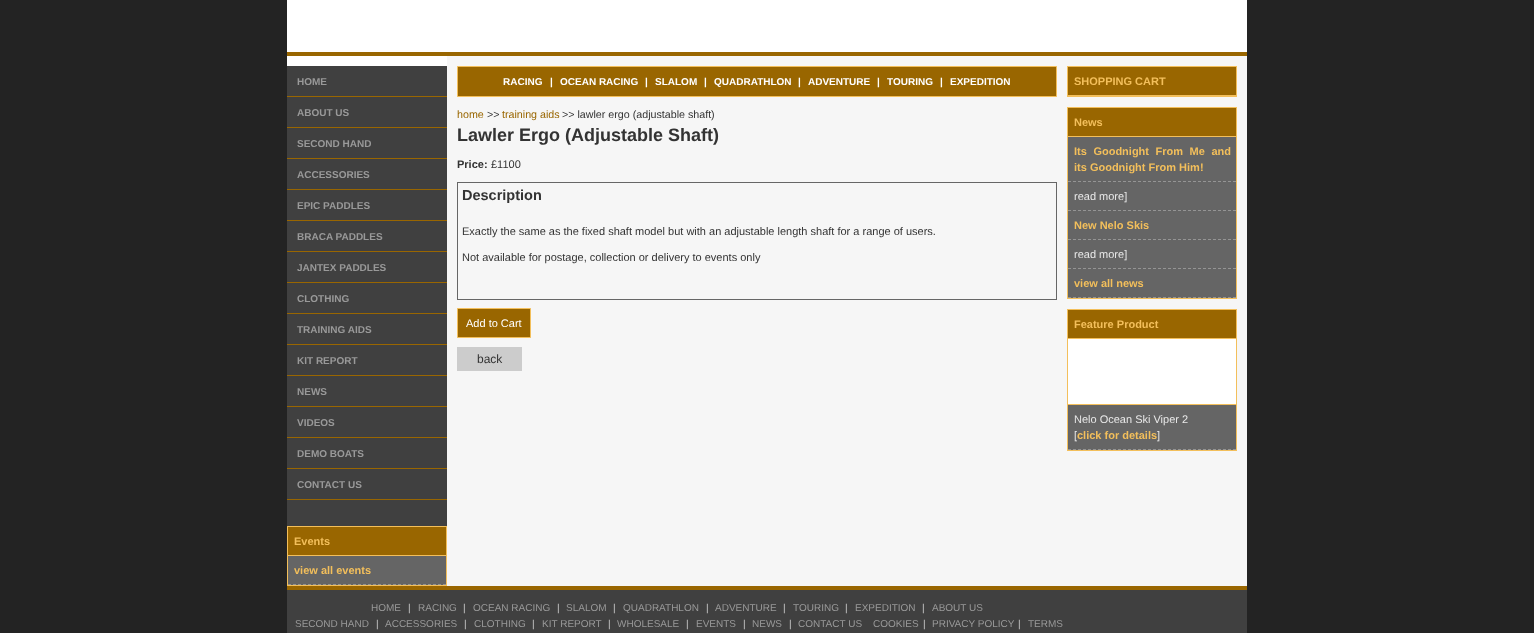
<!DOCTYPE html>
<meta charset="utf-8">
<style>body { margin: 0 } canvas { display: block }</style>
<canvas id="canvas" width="1534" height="633"></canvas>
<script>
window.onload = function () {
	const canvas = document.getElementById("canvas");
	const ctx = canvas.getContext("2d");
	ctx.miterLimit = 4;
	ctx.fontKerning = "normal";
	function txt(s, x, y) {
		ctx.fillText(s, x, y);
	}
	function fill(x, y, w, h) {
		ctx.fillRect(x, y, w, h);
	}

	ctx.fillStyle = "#232323";
	fill(0, 0, 1534, 633);
	ctx.fillStyle = "#FFFFFF";
	fill(287, 0, 960, 52);
	ctx.fillStyle = "#996600";
	fill(287, 52, 960, 4);
	ctx.fillStyle = "#404040";
	fill(287, 66, 160, 460);
	ctx.fillStyle = "#FFFFFF";
	fill(287, 56, 160, 10);
	ctx.fillStyle = "#996600";
	fill(287, 96, 160, 1);
	fill(287, 127, 160, 1);
	fill(287, 158, 160, 1);
	fill(287, 189, 160, 1);
	fill(287, 220, 160, 1);
	fill(287, 251, 160, 1);
	fill(287, 282, 160, 1);
	fill(287, 313, 160, 1);
	fill(287, 344, 160, 1);
	fill(287, 375, 160, 1);
	fill(287, 406, 160, 1);
	fill(287, 437, 160, 1);
	fill(287, 468, 160, 1);
	fill(287, 499, 160, 1);
	ctx.fillStyle = "#656565";
	fill(288, 556, 158, 29);
	ctx.strokeStyle = "#F3BF5B";
	ctx.strokeRect(287.5, 526.5, 159, 59);
	ctx.fillStyle = "#996600";
	fill(288, 527, 158, 28);
	ctx.fillStyle = "#F3BF5B";
	fill(288, 555, 158, 1);
	ctx.beginPath();
	ctx.moveTo(288, 584.5);
	ctx.lineTo(446, 584.5);
	ctx.strokeStyle = "#949494";
	ctx.setLineDash([3, 2]);
	ctx.stroke();
	ctx.fillStyle = "#F6F6F6";
	fill(447, 56, 800, 530);
	ctx.fillStyle = "#996600";
	ctx.beginPath();
	ctx.rect(457.5, 66.5, 599, 30);
	ctx.fill();
	ctx.strokeStyle = "#F3BF5B";
	ctx.setLineDash([]);
	ctx.stroke();
	ctx.strokeStyle = "#666666";
	ctx.strokeRect(457.5, 182.5, 599, 117);
	ctx.beginPath();
	ctx.rect(457.5, 308.5, 73, 29);
	ctx.fill();
	ctx.strokeStyle = "#F3BF5B";
	ctx.stroke();
	ctx.fillStyle = "#CCCCCC";
	fill(457, 347, 65, 24);
	ctx.strokeRect(1067.5, 66.5, 169, 30);
	ctx.fillStyle = "#996600";
	fill(1068, 67, 168, 28);
	ctx.fillStyle = "#F3BF5B";
	fill(1068, 95, 168, 1);
	ctx.fillStyle = "#656565";
	fill(1068, 137, 168, 161);
	ctx.strokeRect(1067.5, 107.5, 169, 191);
	ctx.fillStyle = "#996600";
	fill(1068, 108, 168, 28);
	ctx.fillStyle = "#F3BF5B";
	fill(1068, 136, 168, 1);
	ctx.beginPath();
	ctx.moveTo(1068, 181.5);
	ctx.lineTo(1236, 181.5);
	ctx.strokeStyle = "#949494";
	ctx.setLineDash([3, 2]);
	ctx.stroke();
	ctx.beginPath();
	ctx.moveTo(1068, 210.5);
	ctx.lineTo(1236, 210.5);
	ctx.stroke();
	ctx.beginPath();
	ctx.moveTo(1068, 239.5);
	ctx.lineTo(1236, 239.5);
	ctx.stroke();
	ctx.beginPath();
	ctx.moveTo(1068, 268.5);
	ctx.lineTo(1236, 268.5);
	ctx.stroke();
	ctx.beginPath();
	ctx.moveTo(1068, 297.5);
	ctx.lineTo(1236, 297.5);
	ctx.stroke();
	ctx.fillStyle = "#656565";
	fill(1068, 405, 168, 45);
	ctx.strokeStyle = "#F3BF5B";
	ctx.setLineDash([]);
	ctx.strokeRect(1067.5, 309.5, 169, 141);
	ctx.fillStyle = "#996600";
	fill(1068, 310, 168, 28);
	ctx.fillStyle = "#F3BF5B";
	fill(1068, 338, 168, 1);
	ctx.fillStyle = "#FFFFFF";
	fill(1068, 339, 168, 65);
	ctx.fillStyle = "#F3BF5B";
	fill(1068, 404, 168, 1);
	ctx.beginPath();
	ctx.moveTo(1068, 449.5);
	ctx.lineTo(1236, 449.5);
	ctx.strokeStyle = "#949494";
	ctx.setLineDash([3, 2]);
	ctx.stroke();
	ctx.fillStyle = "#404040";
	fill(287, 590, 960, 43);
	ctx.fillStyle = "#996600";
	fill(287, 586, 960, 4);
	ctx.font = "bold 10px Liberation Sans";
	ctx.fillStyle = "#999999";
	txt("HOME", 297, 85);
	txt("ABOUT US", 297, 116);
	txt("SECOND HAND", 297, 147);
	txt("ACCESSORIES", 297, 178);
	txt("EPIC PADDLES", 297, 209);
	txt("BRACA PADDLES", 297, 240);
	txt("JANTEX PADDLES", 297, 271);
	txt("CLOTHING", 297, 302);
	txt("TRAINING AIDS", 297, 333);
	txt("KIT REPORT", 297, 364);
	txt("NEWS", 297, 395);
	txt("VIDEOS", 297, 426);
	txt("DEMO BOATS", 297, 457);
	txt("CONTACT US", 297, 488);
	ctx.font = "bold 11px Liberation Sans";
	ctx.fillStyle = "#F3BF5B";
	txt("Events", 294, 545);
	txt("view all events", 294, 574);
	ctx.font = "bold 10px Liberation Sans";
	ctx.fillStyle = "#FFFFFF";
	txt("RACING", 503, 85);
	txt("|", 550, 85);
	txt("OCEAN RACING", 560, 85);
	txt("|", 645, 85);
	txt("SLALOM", 655, 85);
	txt("|", 704, 85);
	txt("QUADRATHLON", 714, 85);
	txt("|", 798, 85);
	txt("ADVENTURE", 808, 85);
	txt("|", 877, 85);
	txt("TOURING", 887, 85);
	txt("|", 940, 85);
	txt("EXPEDITION", 950, 85);
	ctx.font = "10.7px Liberation Sans";
	ctx.fillStyle = "#996600";
	txt("home", 457, 118);
	ctx.fillStyle = "#333333";
	txt(">>", 487, 118);
	ctx.fillStyle = "#996600";
	txt("training aids", 502, 118);
	ctx.fillStyle = "#333333";
	txt(">> lawler ergo (adjustable shaft)", 562, 118);
	ctx.font = "bold 18px Liberation Sans";
	txt("Lawler Ergo (Adjustable Shaft)", 457, 141);
	ctx.font = "bold 11px Liberation Sans";
	txt("Price:", 457, 168);
	ctx.font = "11px Liberation Sans";
	txt("£1100", 491, 168);
	ctx.font = "bold 14.5px Liberation Sans";
	txt("Description", 462, 200);
	ctx.font = "11px Liberation Sans";
	txt("Exactly the same as the fixed shaft model but with an adjustable length shaft for a range of users.", 462, 235);
	txt("Not available for postage, collection or delivery to events only", 462, 261);
	ctx.fillStyle = "#FFFFFF";
	txt("Add to Cart", 466, 327);
	ctx.font = "12px Liberation Sans";
	ctx.fillStyle = "#333333";
	txt("back", 477, 363);
	ctx.font = "bold 11px Liberation Sans";
	ctx.fillStyle = "#F3BF5B";
	txt("SHOPPING CART", 1074, 85);
	txt("News", 1074, 126);
	ctx.wordSpacing = "3.5px";
	txt("Its Goodnight From Me and", 1074, 155);
	ctx.wordSpacing = "0px";
	txt("its Goodnight From Him!", 1074, 171);
	ctx.font = "11px Liberation Sans";
	ctx.fillStyle = "#E8E8E8";
	txt("read more]", 1074, 200);
	ctx.font = "bold 11px Liberation Sans";
	ctx.fillStyle = "#F3BF5B";
	txt("New Nelo Skis", 1074, 229);
	ctx.font = "11px Liberation Sans";
	ctx.fillStyle = "#E8E8E8";
	txt("read more]", 1074, 258);
	ctx.font = "bold 11px Liberation Sans";
	ctx.fillStyle = "#F3BF5B";
	txt("view all news", 1074, 287);
	txt("Feature Product", 1074, 328);
	ctx.font = "11px Liberation Sans";
	ctx.fillStyle = "#E8E8E8";
	txt("Nelo Ocean Ski Viper 2", 1074, 423);
	txt("[", 1074, 439);
	ctx.font = "bold 11px Liberation Sans";
	ctx.fillStyle = "#F3BF5B";
	txt("click for details", 1077, 439);
	ctx.font = "11px Liberation Sans";
	ctx.fillStyle = "#E8E8E8";
	txt("]", 1157, 439);
	ctx.font = "10px Liberation Sans";
	ctx.fillStyle = "#999999";
	txt("HOME", 371, 611);
	ctx.fillStyle = "#CCCCCC";
	txt("|", 408, 611);
	ctx.fillStyle = "#999999";
	txt("RACING", 418, 611);
	ctx.fillStyle = "#CCCCCC";
	txt("|", 463, 611);
	ctx.fillStyle = "#999999";
	txt("OCEAN RACING", 473, 611);
	ctx.fillStyle = "#CCCCCC";
	txt("|", 557, 611);
	ctx.fillStyle = "#999999";
	txt("SLALOM", 566, 611);
	ctx.fillStyle = "#CCCCCC";
	txt("|", 613, 611);
	ctx.fillStyle = "#999999";
	txt("QUADRATHLON", 623, 611);
	ctx.fillStyle = "#CCCCCC";
	txt("|", 706, 611);
	ctx.fillStyle = "#999999";
	txt("ADVENTURE", 715, 611);
	ctx.fillStyle = "#CCCCCC";
	txt("|", 783, 611);
	ctx.fillStyle = "#999999";
	txt("TOURING", 793, 611);
	ctx.fillStyle = "#CCCCCC";
	txt("|", 845, 611);
	ctx.fillStyle = "#999999";
	txt("EXPEDITION", 855, 611);
	ctx.fillStyle = "#CCCCCC";
	txt("|", 922, 611);
	ctx.fillStyle = "#999999";
	txt("ABOUT US", 932, 611);
	txt("SECOND HAND", 295, 627);
	ctx.fillStyle = "#CCCCCC";
	txt("|", 376, 627);
	ctx.fillStyle = "#999999";
	txt("ACCESSORIES", 385, 627);
	ctx.fillStyle = "#CCCCCC";
	txt("|", 464, 627);
	ctx.fillStyle = "#999999";
	txt("CLOTHING", 474, 627);
	ctx.fillStyle = "#CCCCCC";
	txt("|", 532, 627);
	ctx.fillStyle = "#999999";
	txt("KIT REPORT", 542, 627);
	ctx.fillStyle = "#CCCCCC";
	txt("|", 608, 627);
	ctx.fillStyle = "#999999";
	txt("WHOLESALE", 617, 627);
	ctx.fillStyle = "#CCCCCC";
	txt("|", 686, 627);
	ctx.fillStyle = "#999999";
	txt("EVENTS", 696, 627);
	ctx.fillStyle = "#CCCCCC";
	txt("|", 743, 627);
	ctx.fillStyle = "#999999";
	txt("NEWS", 752, 627);
	ctx.fillStyle = "#CCCCCC";
	txt("|", 789, 627);
	ctx.fillStyle = "#999999";
	txt("CONTACT US", 798, 627);
	txt("COOKIES", 873, 627);
	ctx.fillStyle = "#CCCCCC";
	txt("|", 923, 627);
	ctx.fillStyle = "#999999";
	txt("PRIVACY POLICY", 932, 627);
	ctx.fillStyle = "#CCCCCC";
	txt("|", 1018, 627);
	ctx.fillStyle = "#999999";
	txt("TERMS", 1028, 627);
};
</script>
